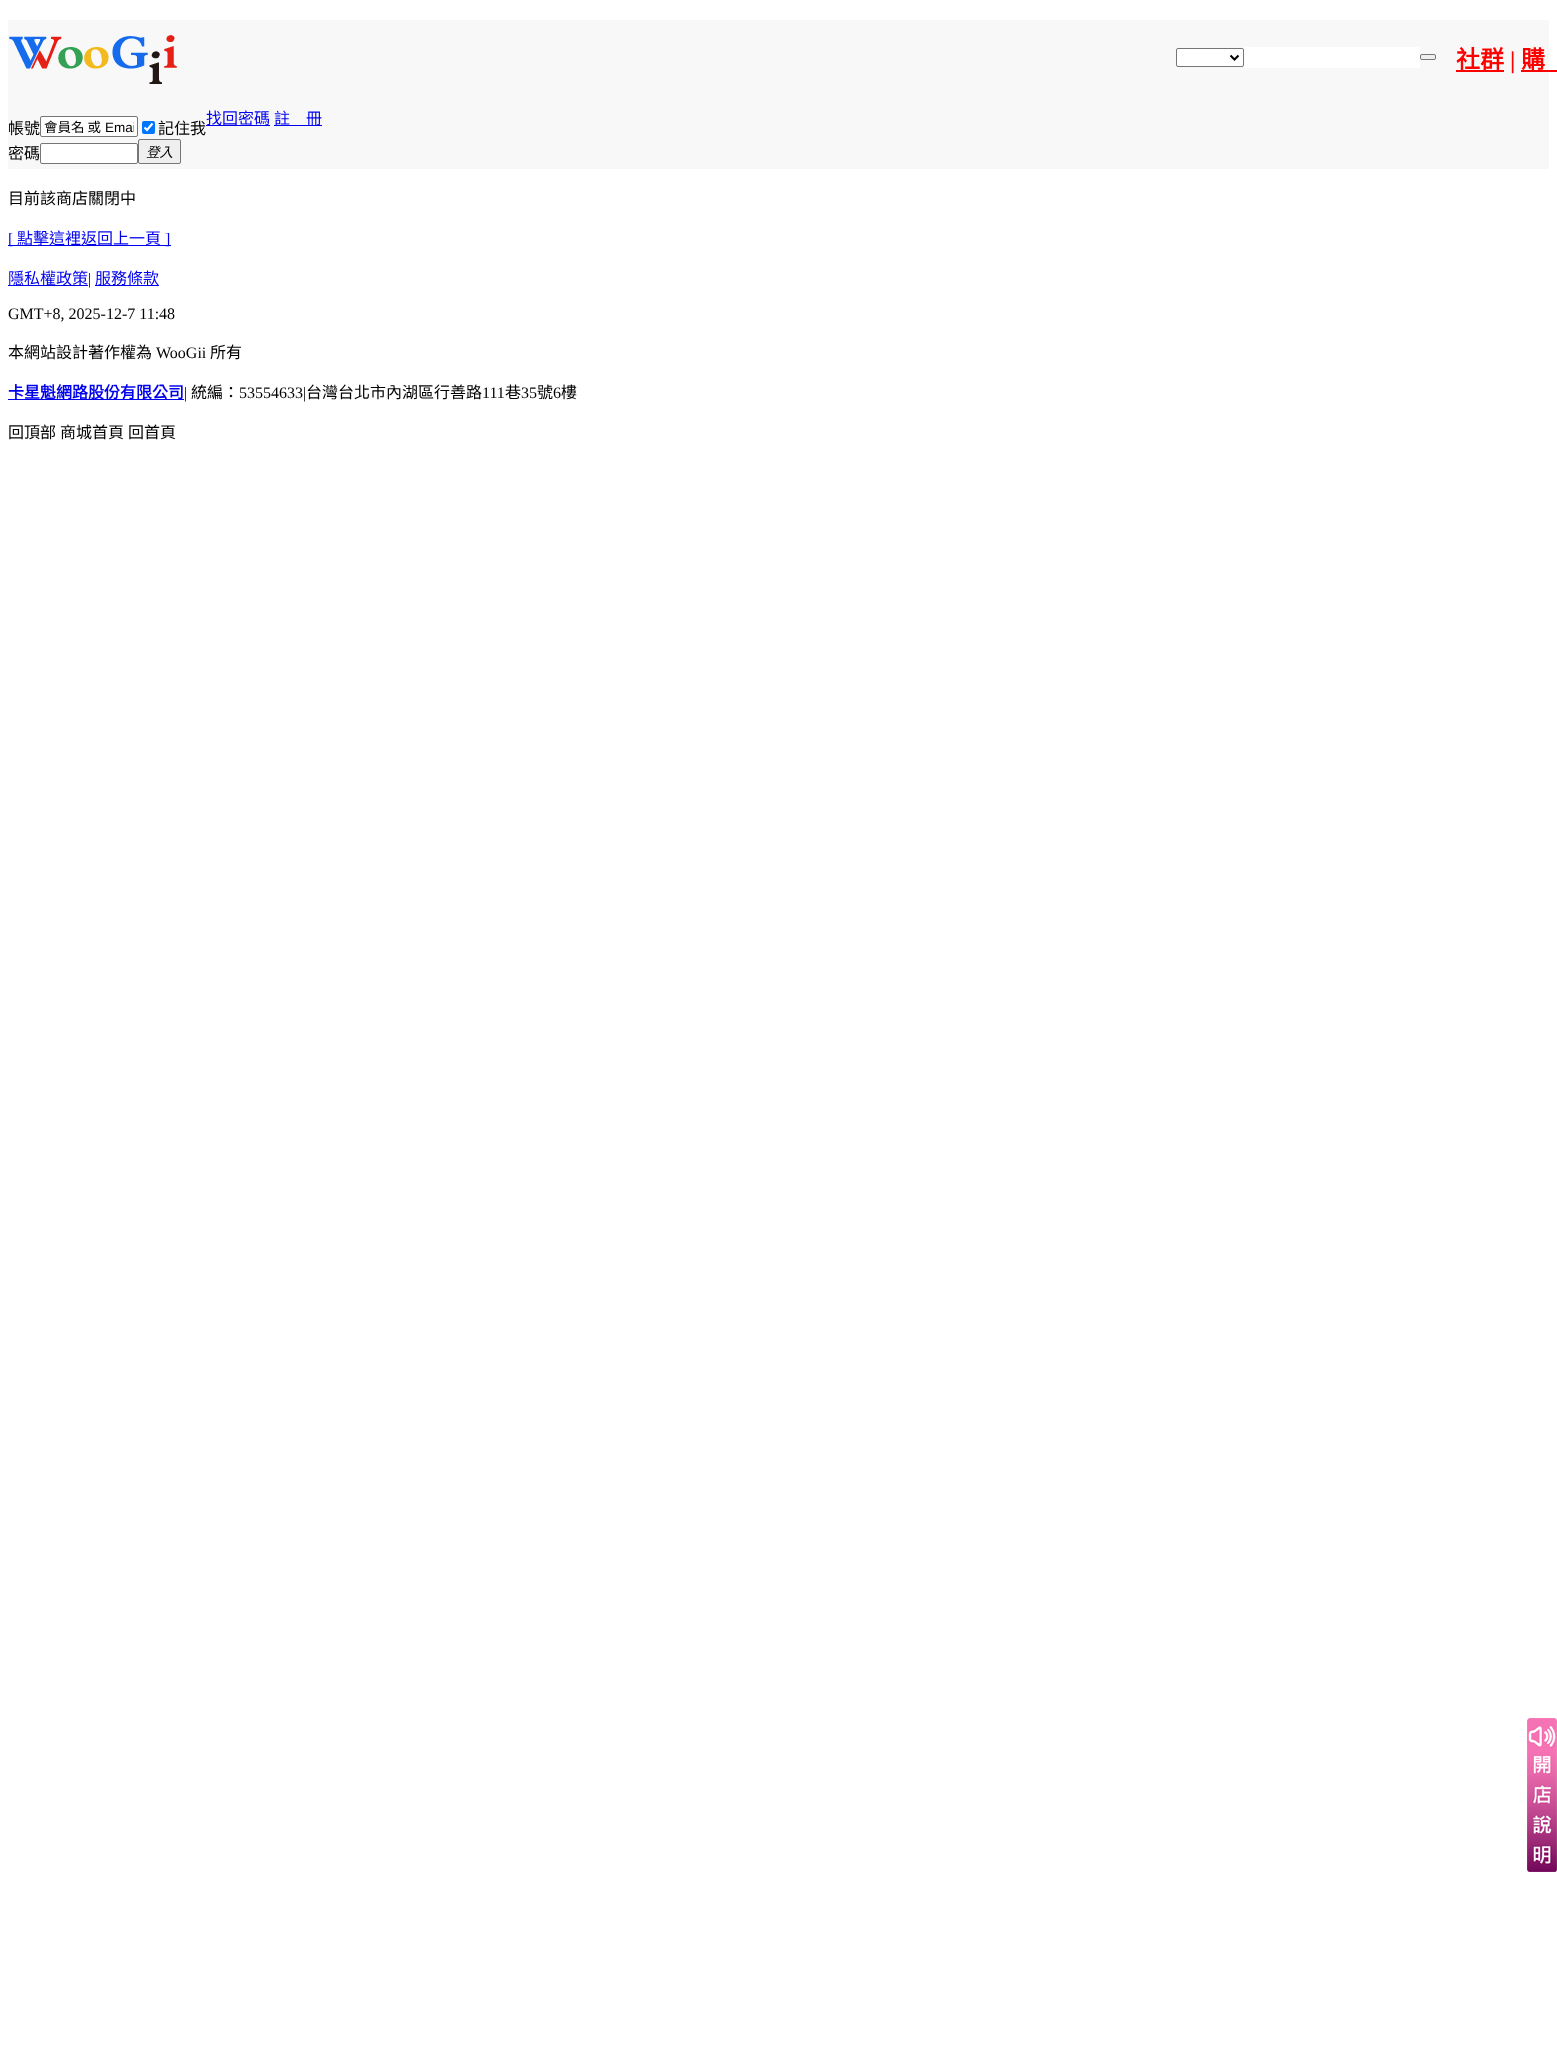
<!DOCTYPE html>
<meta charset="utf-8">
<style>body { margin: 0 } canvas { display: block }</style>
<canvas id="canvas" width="1557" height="2063"></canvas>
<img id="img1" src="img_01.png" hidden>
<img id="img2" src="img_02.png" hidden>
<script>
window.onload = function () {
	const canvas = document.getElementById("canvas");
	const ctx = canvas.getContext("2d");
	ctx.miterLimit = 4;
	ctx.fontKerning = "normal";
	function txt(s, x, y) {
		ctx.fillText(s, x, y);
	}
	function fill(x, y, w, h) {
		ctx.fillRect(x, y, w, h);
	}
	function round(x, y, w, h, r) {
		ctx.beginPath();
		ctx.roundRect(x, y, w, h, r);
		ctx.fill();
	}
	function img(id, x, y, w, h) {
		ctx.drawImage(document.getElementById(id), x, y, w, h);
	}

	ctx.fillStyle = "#FFFFFF";
	fill(0, 0, 1557, 2063);
	ctx.fillStyle = "#F8F8F8";
	fill(8, 20, 1541, 149);
	img("img1", 9, 35, 168, 49);
	ctx.fillStyle = "#FFFFFF";
	ctx.beginPath();
	ctx.roundRect(1176.5, 48.5, 67, 18, 1.5);
	ctx.fill();
	ctx.strokeStyle = "#767676";
	ctx.stroke();
	ctx.beginPath();
	ctx.moveTo(1230.5, 55.5);
	ctx.lineTo(1234.5, 59.5);
	ctx.lineTo(1238.5, 55.5);
	ctx.strokeStyle = "#000000";
	ctx.lineWidth = 2;
	ctx.stroke();
	fill(1244, 47, 176, 21);
	ctx.fillStyle = "#EFEFEF";
	ctx.beginPath();
	ctx.roundRect(1420.5, 54.5, 15, 5, 1.5);
	ctx.fill();
	ctx.strokeStyle = "#767676";
	ctx.lineWidth = 1;
	ctx.stroke();
	ctx.fillStyle = "#FF0000";
	fill(1456, 70, 48, 2);
	fill(1521, 70, 36, 2);
	ctx.fillStyle = "#0000EE";
	fill(206, 125, 64, 1);
	fill(274, 125, 48, 1);
	ctx.fillStyle = "#FFFFFF";
	ctx.beginPath();
	ctx.roundRect(40.5, 116.5, 97, 20, 1.5);
	ctx.fill();
	ctx.stroke();
	ctx.fillStyle = "#0075FF";
	round(142, 121, 13, 13, 2);
	ctx.beginPath();
	ctx.moveTo(144.5, 127.5);
	ctx.lineTo(147, 130);
	ctx.lineTo(152.5, 123.5);
	ctx.strokeStyle = "#FFFFFF";
	ctx.lineWidth = 2.1;
	ctx.stroke();
	ctx.fillStyle = "#FFFFFF";
	ctx.beginPath();
	ctx.roundRect(40.5, 143.5, 97, 20, 1.5);
	ctx.fill();
	ctx.strokeStyle = "#767676";
	ctx.lineWidth = 1;
	ctx.stroke();
	ctx.fillStyle = "#EFEFEF";
	ctx.beginPath();
	ctx.roundRect(138.5, 139.5, 42, 24, 1.5);
	ctx.fill();
	ctx.stroke();
	ctx.fillStyle = "#0000EE";
	fill(8, 245, 163, 1);
	fill(8, 285, 80, 1);
	fill(95, 285, 64, 1);
	fill(8, 399, 176, 1);
	img("img2", 1527, 1718, 30, 154);
	ctx.font = "bold 24px Noto Sans CJK TC";
	ctx.fillStyle = "#FF0000";
	txt("社群", 1456, 68);
	ctx.font = "bold 24px Liberation Serif";
	txt("|", 1510, 68);
	ctx.font = "bold 24px Noto Sans CJK TC";
	txt("購", 1521, 68);
	ctx.font = "16px Noto Sans CJK TC";
	ctx.fillStyle = "#0000EE";
	txt("找回密碼", 206, 124);
	txt("註　冊", 274, 124);
	ctx.fillStyle = "#000000";
	txt("帳號", 8, 134);
	ctx.font = "13.5px Noto Sans CJK TC";
	txt("會員名 或", 44, 132);
	ctx.save();
	ctx.beginPath();
	ctx.rect(44, 118, 90, 17);
	ctx.clip();
	ctx.font = "13.5px Liberation Sans";
	txt("Emai", 105, 132);
	ctx.restore();
	ctx.font = "16px Noto Sans CJK TC";
	txt("記住我", 158, 134);
	txt("密碼", 8, 159);
	ctx.font = "italic 13.5px Noto Sans CJK TC";
	txt("登入", 146, 157);
	ctx.font = "16px Noto Sans CJK TC";
	txt("目前該商店關閉中", 8, 204);
	ctx.font = "16px Liberation Serif";
	ctx.fillStyle = "#0000EE";
	txt("[", 8, 244);
	ctx.font = "16px Noto Sans CJK TC";
	txt("點擊這裡返回上一頁", 17, 244);
	ctx.font = "16px Liberation Serif";
	txt("]", 165, 244);
	ctx.font = "16px Noto Sans CJK TC";
	txt("隱私權政策", 8, 284);
	ctx.font = "16px Liberation Serif";
	ctx.fillStyle = "#000000";
	txt("|", 88, 284);
	ctx.font = "16px Noto Sans CJK TC";
	ctx.fillStyle = "#0000EE";
	txt("服務條款", 95, 284);
	ctx.font = "16px Liberation Serif";
	ctx.fillStyle = "#000000";
	txt("GMT+8, 2025-12-7 11:48", 8, 319);
	ctx.font = "16px Noto Sans CJK TC";
	txt("本網站設計著作權為", 8, 358);
	ctx.font = "16px Liberation Serif";
	txt("WooGii", 156, 358);
	ctx.font = "16px Noto Sans CJK TC";
	txt("所有", 210, 358);
	ctx.font = "bold 16px Noto Sans CJK TC";
	ctx.fillStyle = "#0000EE";
	txt("卡星魁網路股份有限公司", 8, 398);
	ctx.font = "16px Liberation Serif";
	ctx.fillStyle = "#000000";
	txt("|", 184, 398);
	ctx.font = "16px Noto Sans CJK TC";
	txt("統編：", 191, 398);
	ctx.font = "16px Liberation Serif";
	txt("53554633|", 239, 398);
	ctx.font = "16px Noto Sans CJK TC";
	txt("台灣台北市內湖區行善路", 306, 398);
	ctx.font = "16px Liberation Serif";
	txt("111", 482, 398);
	ctx.font = "16px Noto Sans CJK TC";
	txt("巷", 505, 398);
	ctx.font = "16px Liberation Serif";
	txt("35", 521, 398);
	ctx.font = "16px Noto Sans CJK TC";
	txt("號", 537, 398);
	ctx.font = "16px Liberation Serif";
	txt("6", 553, 398);
	ctx.font = "16px Noto Sans CJK TC";
	txt("樓", 561, 398);
	txt("回頂部", 8, 438);
	txt("商城首頁", 60, 438);
	txt("回首頁", 128, 438);
};
</script>
